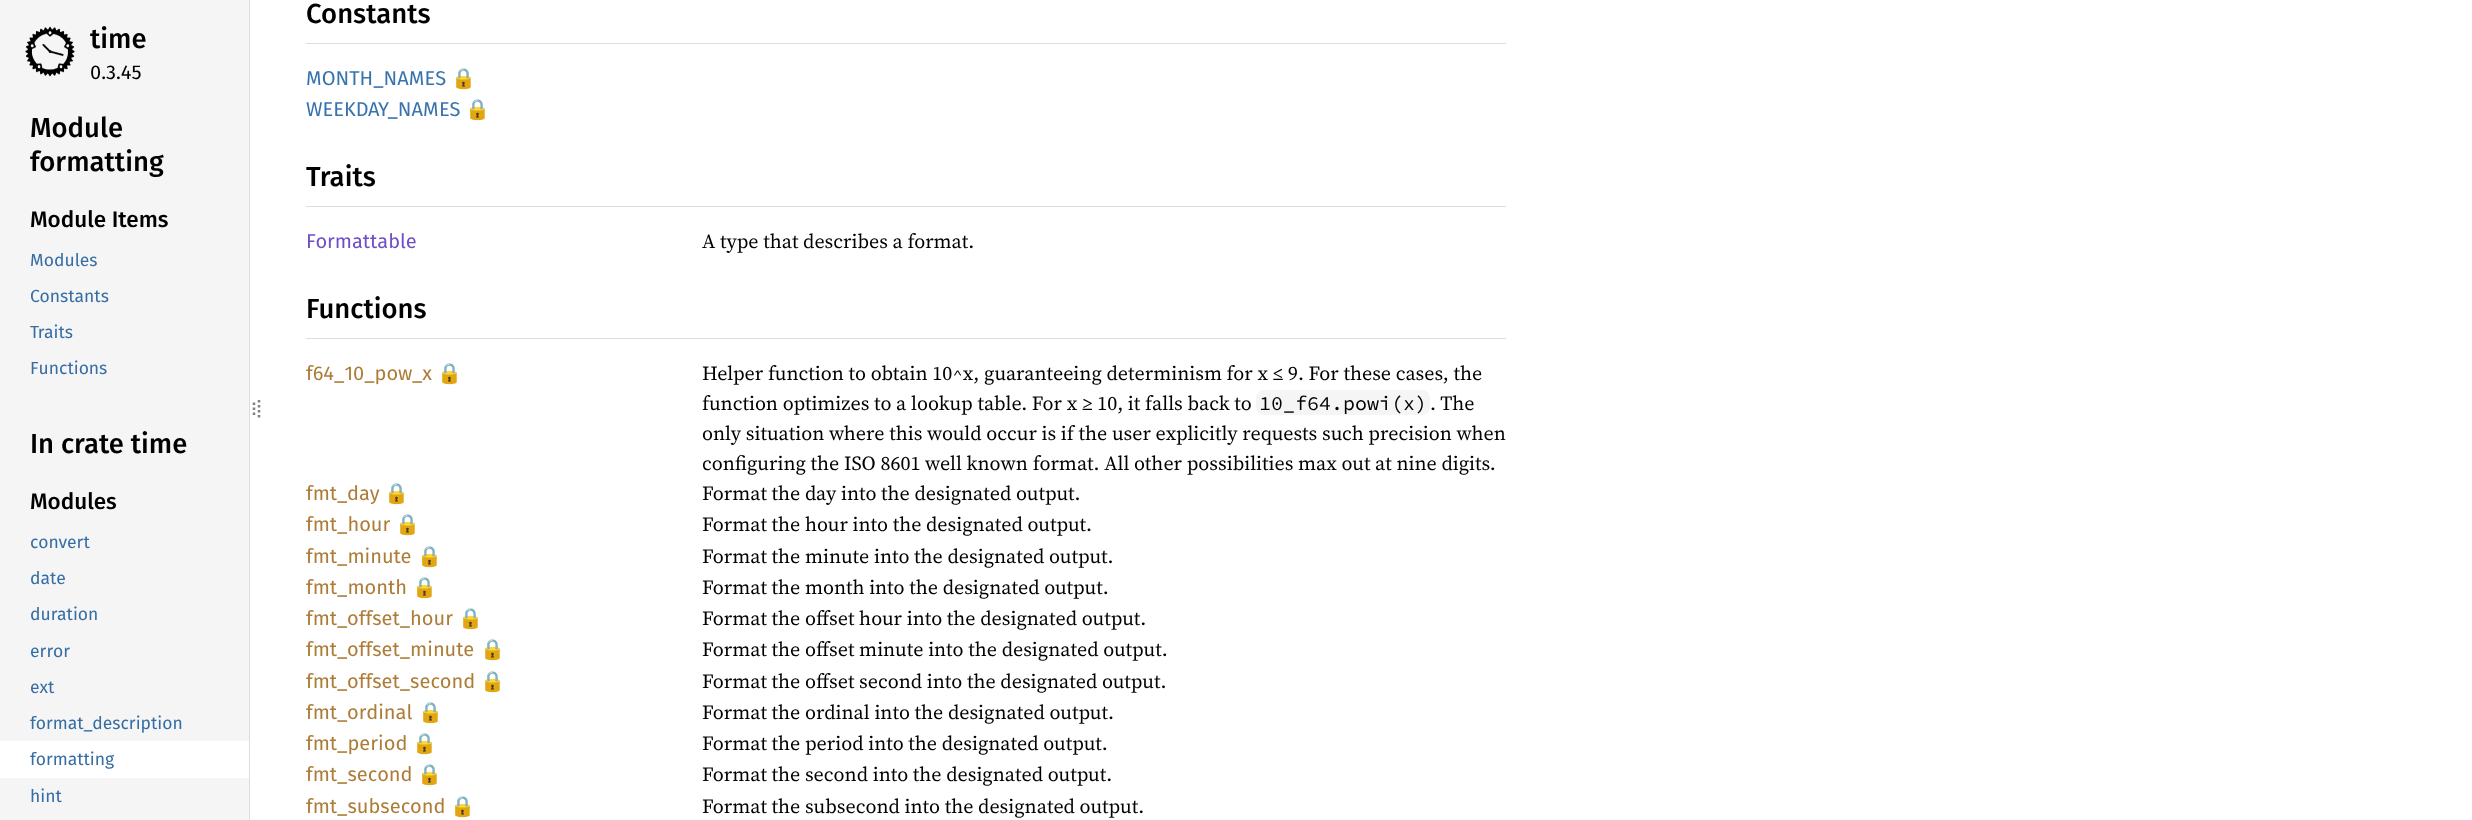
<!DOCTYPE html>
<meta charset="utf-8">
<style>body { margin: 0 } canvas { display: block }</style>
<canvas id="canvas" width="2472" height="820"></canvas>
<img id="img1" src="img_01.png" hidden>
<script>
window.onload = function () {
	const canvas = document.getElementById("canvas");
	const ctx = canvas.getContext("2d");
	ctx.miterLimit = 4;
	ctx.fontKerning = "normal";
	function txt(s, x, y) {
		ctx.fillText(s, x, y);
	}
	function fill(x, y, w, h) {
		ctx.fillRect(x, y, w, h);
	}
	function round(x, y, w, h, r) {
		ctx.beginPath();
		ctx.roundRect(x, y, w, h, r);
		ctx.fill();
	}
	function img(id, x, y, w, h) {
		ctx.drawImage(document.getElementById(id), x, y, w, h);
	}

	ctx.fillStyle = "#FFFFFF";
	fill(0, 0, 2472, 820);
	ctx.fillStyle = "#F5F5F5";
	fill(0, 0, 249, 820);
	ctx.fillStyle = "#DDDDDD";
	fill(249, 0, 1, 820);
	img("img1", 25, 26, 50, 51);
	ctx.fillStyle = "#FFFFFF";
	fill(0, 741, 249, 37);
	ctx.beginPath();
	ctx.moveTo(254, 402.5);
	ctx.lineTo(254, 405);
	ctx.moveTo(254, 407.5);
	ctx.lineTo(254, 410);
	ctx.moveTo(254, 412.5);
	ctx.lineTo(254, 415);
	ctx.strokeStyle = "#808080";
	ctx.lineWidth = 2.5;
	ctx.stroke();
	ctx.beginPath();
	ctx.moveTo(259, 400);
	ctx.lineTo(259, 420);
	ctx.setLineDash([2.5, 2.5]);
	ctx.stroke();
	ctx.fillStyle = "#DDDDDD";
	fill(306, 43, 1200, 1);
	fill(306, 206, 1200, 1);
	fill(306, 338, 1200, 1);
	ctx.fillStyle = "#F5F5F5";
	round(1256, 390, 174, 25, 8);
	ctx.font = "500 27.5px Fira Sans";
	ctx.fillStyle = "#000000";
	txt("time", 90, 48);
	ctx.font = "20px Fira Sans";
	txt("0.3.45", 90, 79);
	ctx.font = "500 27.5px Fira Sans";
	txt("Module", 30, 137);
	txt("formatting", 30, 171);
	ctx.font = "500 22.5px Fira Sans";
	txt("Module Items", 30, 227);
	ctx.font = "17.5px Fira Sans";
	ctx.fillStyle = "#356DA4";
	txt("Modules", 30, 266);
	txt("Constants", 30, 302);
	txt("Traits", 30, 338);
	txt("Functions", 30, 374);
	ctx.font = "500 27.5px Fira Sans";
	ctx.fillStyle = "#000000";
	txt("In crate time", 30, 453);
	ctx.font = "500 22.5px Fira Sans";
	txt("Modules", 30, 509);
	ctx.font = "17.5px Fira Sans";
	ctx.fillStyle = "#356DA4";
	txt("convert", 30, 548);
	txt("date", 30, 584);
	txt("duration", 30, 620);
	txt("error", 30, 657);
	txt("ext", 30, 693);
	txt("format_description", 30, 729);
	txt("formatting", 30, 765);
	txt("hint", 30, 802);
	ctx.font = "500 27.5px Fira Sans";
	ctx.fillStyle = "#000000";
	txt("Constants", 306, 23);
	ctx.font = "20px Fira Sans";
	ctx.fillStyle = "#3873AD";
	txt("MONTH_NAMES", 306, 85);
	ctx.font = "20px Noto Color Emoji";
	ctx.fillStyle = "#000000";
	txt("🔒", 451, 85);
	ctx.font = "20px Fira Sans";
	ctx.fillStyle = "#3873AD";
	txt("WEEKDAY_NAMES", 306, 116);
	ctx.font = "20px Noto Color Emoji";
	ctx.fillStyle = "#000000";
	txt("🔒", 465, 116);
	ctx.font = "500 27.5px Fira Sans";
	txt("Traits", 306, 186);
	ctx.font = "20px Fira Sans";
	ctx.fillStyle = "#6E4FC9";
	txt("Formattable", 306, 248);
	ctx.font = "20px 'Source Serif 4'";
	ctx.fillStyle = "#000000";
	txt("A type that describes a format.", 702, 248);
	ctx.font = "500 27.5px Fira Sans";
	txt("Functions", 306, 318);
	ctx.font = "20px Fira Sans";
	ctx.fillStyle = "#AD7C37";
	txt("f64_10_pow_x", 306, 380);
	ctx.font = "20px Noto Color Emoji";
	ctx.fillStyle = "#000000";
	txt("🔒", 437, 380);
	ctx.font = "20px 'Source Serif 4'";
	txt("Helper function to obtain 10^x, guaranteeing determinism for x ≤ 9. For these cases, the", 702, 380);
	txt("function optimizes to a lookup table. For x ≥ 10, it falls back to", 702, 410);
	ctx.font = "20px Source Code Pro";
	txt("10_f64.powi(x)", 1259, 410);
	ctx.font = "20px 'Source Serif 4'";
	txt(". The", 1430, 410);
	txt("only situation where this would occur is if the user explicitly requests such precision when", 702, 440);
	txt("configuring the ISO 8601 well known format. All other possibilities max out at nine digits.", 702, 470);
	ctx.font = "20px Fira Sans";
	ctx.fillStyle = "#AD7C37";
	txt("fmt_day", 306, 500);
	ctx.font = "20px Noto Color Emoji";
	ctx.fillStyle = "#000000";
	txt("🔒", 384, 500);
	ctx.font = "20px 'Source Serif 4'";
	txt("Format the day into the designated output.", 702, 500);
	ctx.font = "20px Fira Sans";
	ctx.fillStyle = "#AD7C37";
	txt("fmt_hour", 306, 531);
	ctx.font = "20px Noto Color Emoji";
	ctx.fillStyle = "#000000";
	txt("🔒", 395, 531);
	ctx.font = "20px 'Source Serif 4'";
	txt("Format the hour into the designated output.", 702, 531);
	ctx.font = "20px Fira Sans";
	ctx.fillStyle = "#AD7C37";
	txt("fmt_minute", 306, 563);
	ctx.font = "20px Noto Color Emoji";
	ctx.fillStyle = "#000000";
	txt("🔒", 417, 563);
	ctx.font = "20px 'Source Serif 4'";
	txt("Format the minute into the designated output.", 702, 563);
	ctx.font = "20px Fira Sans";
	ctx.fillStyle = "#AD7C37";
	txt("fmt_month", 306, 594);
	ctx.font = "20px Noto Color Emoji";
	ctx.fillStyle = "#000000";
	txt("🔒", 412, 594);
	ctx.font = "20px 'Source Serif 4'";
	txt("Format the month into the designated output.", 702, 594);
	ctx.font = "20px Fira Sans";
	ctx.fillStyle = "#AD7C37";
	txt("fmt_offset_hour", 306, 625);
	ctx.font = "20px Noto Color Emoji";
	ctx.fillStyle = "#000000";
	txt("🔒", 458, 625);
	ctx.font = "20px 'Source Serif 4'";
	txt("Format the offset hour into the designated output.", 702, 625);
	ctx.font = "20px Fira Sans";
	ctx.fillStyle = "#AD7C37";
	txt("fmt_offset_minute", 306, 656);
	ctx.font = "20px Noto Color Emoji";
	ctx.fillStyle = "#000000";
	txt("🔒", 480, 656);
	ctx.font = "20px 'Source Serif 4'";
	txt("Format the offset minute into the designated output.", 702, 656);
	ctx.font = "20px Fira Sans";
	ctx.fillStyle = "#AD7C37";
	txt("fmt_offset_second", 306, 688);
	ctx.font = "20px Noto Color Emoji";
	ctx.fillStyle = "#000000";
	txt("🔒", 480, 688);
	ctx.font = "20px 'Source Serif 4'";
	txt("Format the offset second into the designated output.", 702, 688);
	ctx.font = "20px Fira Sans";
	ctx.fillStyle = "#AD7C37";
	txt("fmt_ordinal", 306, 719);
	ctx.font = "20px Noto Color Emoji";
	ctx.fillStyle = "#000000";
	txt("🔒", 418, 719);
	ctx.font = "20px 'Source Serif 4'";
	txt("Format the ordinal into the designated output.", 702, 719);
	ctx.font = "20px Fira Sans";
	ctx.fillStyle = "#AD7C37";
	txt("fmt_period", 306, 750);
	ctx.font = "20px Noto Color Emoji";
	ctx.fillStyle = "#000000";
	txt("🔒", 412, 750);
	ctx.font = "20px 'Source Serif 4'";
	txt("Format the period into the designated output.", 702, 750);
	ctx.font = "20px Fira Sans";
	ctx.fillStyle = "#AD7C37";
	txt("fmt_second", 306, 781);
	ctx.font = "20px Noto Color Emoji";
	ctx.fillStyle = "#000000";
	txt("🔒", 417, 781);
	ctx.font = "20px 'Source Serif 4'";
	txt("Format the second into the designated output.", 702, 781);
	ctx.font = "20px Fira Sans";
	ctx.fillStyle = "#AD7C37";
	txt("fmt_subsecond", 306, 813);
	ctx.font = "20px Noto Color Emoji";
	ctx.fillStyle = "#000000";
	txt("🔒", 450, 813);
	ctx.font = "20px 'Source Serif 4'";
	txt("Format the subsecond into the designated output.", 702, 813);
};
</script>
